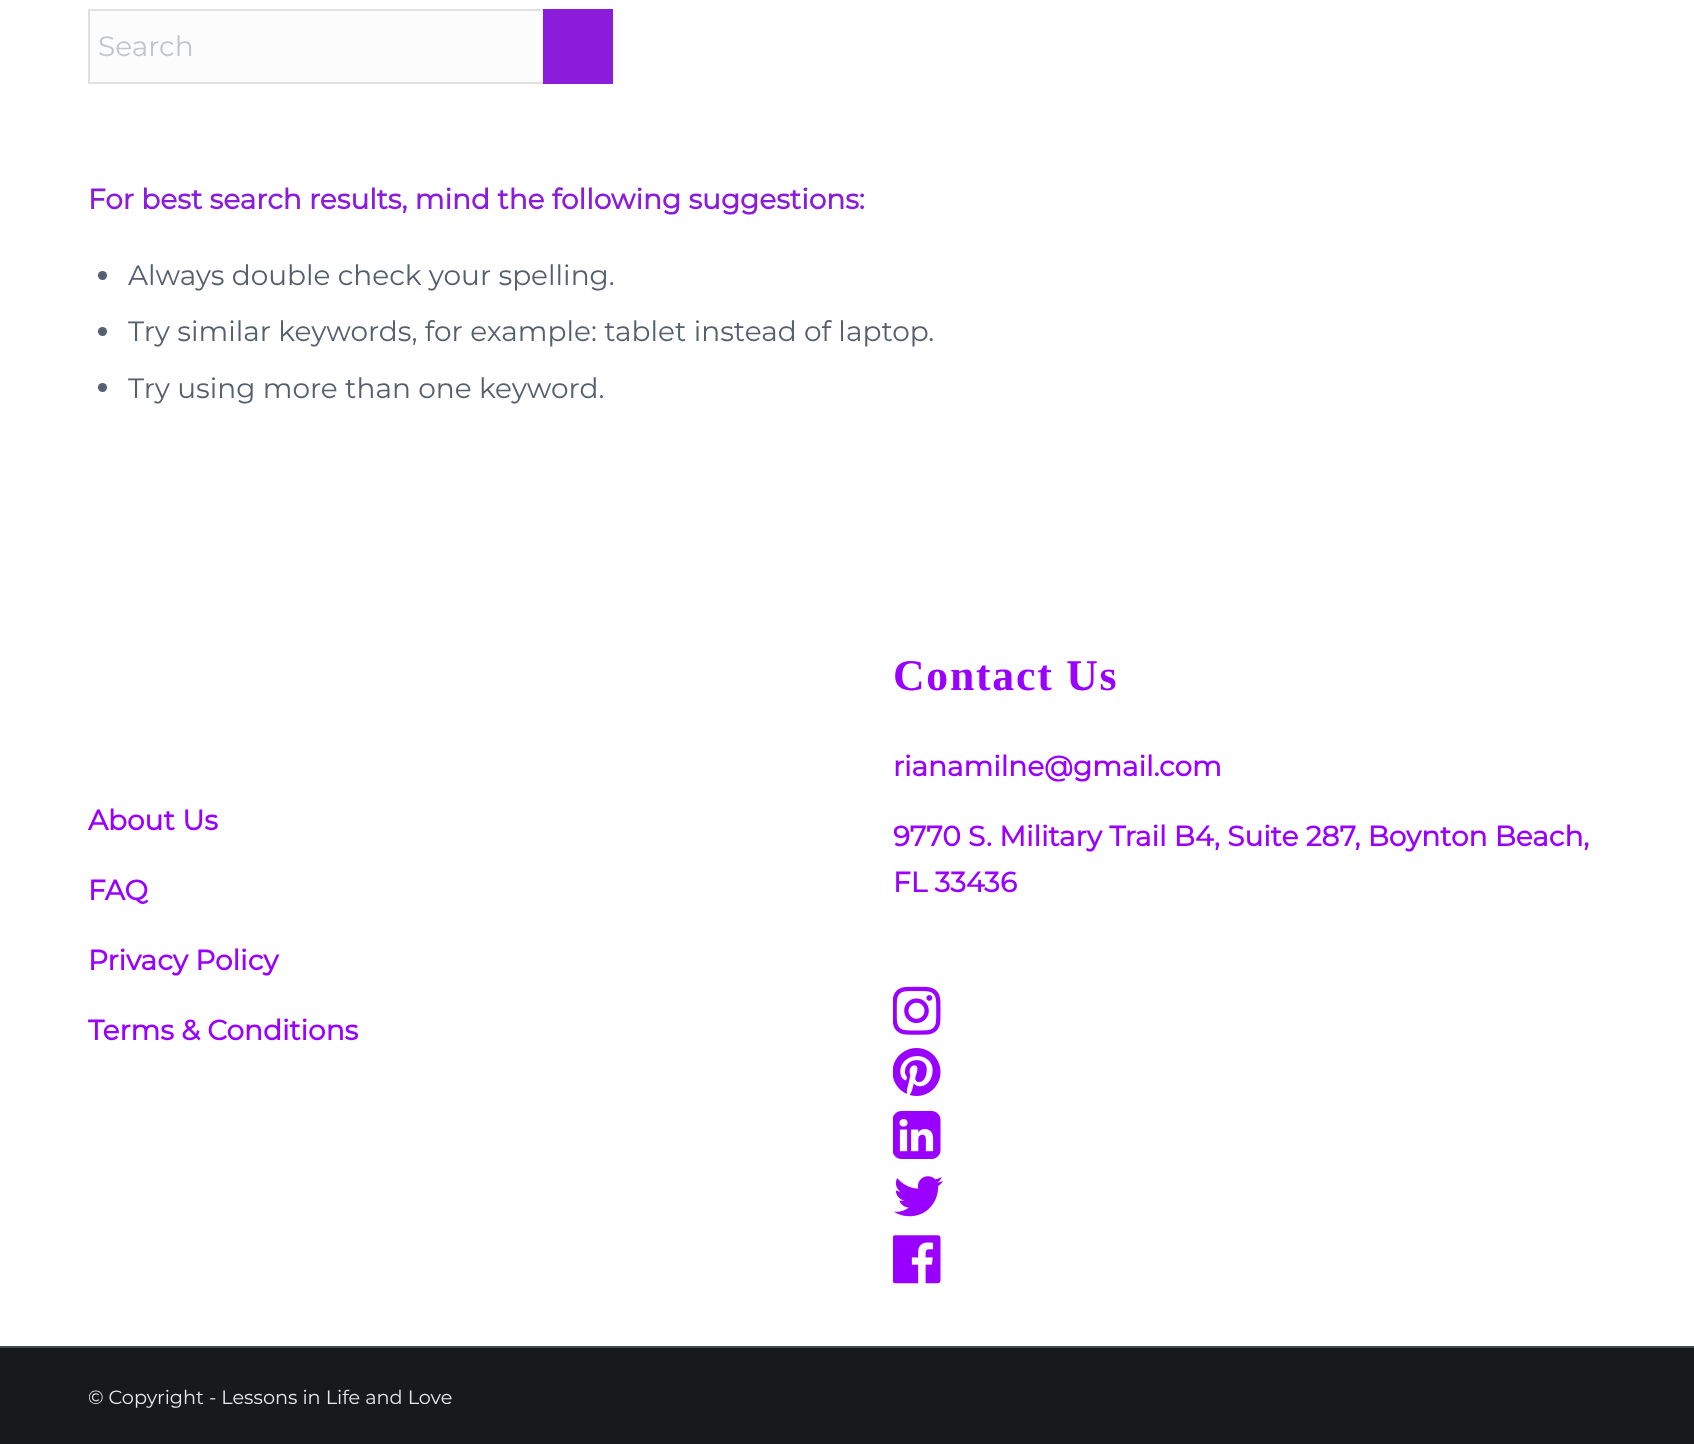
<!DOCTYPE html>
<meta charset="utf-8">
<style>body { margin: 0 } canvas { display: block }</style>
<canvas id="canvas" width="1694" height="1444"></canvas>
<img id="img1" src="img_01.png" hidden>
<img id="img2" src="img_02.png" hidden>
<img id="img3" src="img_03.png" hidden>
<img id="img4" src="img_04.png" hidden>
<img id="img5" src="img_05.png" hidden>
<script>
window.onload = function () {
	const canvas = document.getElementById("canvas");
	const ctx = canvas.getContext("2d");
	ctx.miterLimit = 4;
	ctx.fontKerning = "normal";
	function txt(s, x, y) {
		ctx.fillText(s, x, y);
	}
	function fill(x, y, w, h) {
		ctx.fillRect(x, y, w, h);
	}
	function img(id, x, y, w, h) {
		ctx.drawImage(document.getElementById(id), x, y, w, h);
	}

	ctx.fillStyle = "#FFFFFF";
	fill(0, 0, 1694, 1444);
	ctx.fillStyle = "#FCFCFC";
	fill(90, 11, 453, 71);
	ctx.strokeStyle = "#E1E1E1";
	ctx.lineWidth = 2;
	ctx.strokeRect(89, 10, 523, 73);
	ctx.fillStyle = "#8C1CDB";
	fill(543, 9, 70, 75);
	ctx.fillStyle = "#55606E";
	ctx.beginPath();
	ctx.arc(102.5, 275.5, 4.5, 0, Math.PI * 2);
	ctx.fill();
	ctx.beginPath();
	ctx.arc(102.5, 331.5, 4.5, 0, Math.PI * 2);
	ctx.fill();
	ctx.beginPath();
	ctx.arc(102.5, 387.5, 4.5, 0, Math.PI * 2);
	ctx.fill();
	img("img1", 893, 986, 48, 49);
	img("img2", 893, 1048, 48, 48);
	img("img3", 893, 1111, 48, 48);
	img("img4", 894, 1176, 49, 41);
	img("img5", 893, 1235, 48, 49);
	ctx.fillStyle = "#161A1C";
	fill(0, 1348, 1694, 96);
	ctx.fillStyle = "#3E4A52";
	fill(0, 1346, 1694, 2);
	ctx.font = "100 28px Montserrat";
	ctx.fillStyle = "#C2C6C9";
	txt("Search", 98, 56);
	ctx.font = "bold 28px Montserrat";
	ctx.fillStyle = "#8C1CDB";
	txt("For best search results, mind the following suggestions:", 88, 209);
	ctx.font = "100 28px Montserrat";
	ctx.fillStyle = "#55606E";
	txt("Always double check your spelling.", 128, 285);
	txt("Try similar keywords, for example: tablet instead of laptop.", 128, 341);
	txt("Try using more than one keyword.", 128, 398);
	ctx.letterSpacing = "1.75px";
	ctx.font = "bold 43.75px Liberation Serif";
	ctx.fillStyle = "#9900FF";
	txt("Contact Us", 893, 690);
	ctx.letterSpacing = "0px";
	ctx.font = "bold 28px Montserrat";
	txt("rianamilne@gmail.com", 893, 776);
	txt("9770 S. Military Trail B4, Suite 287, Boynton Beach,", 893, 846);
	txt("FL 33436", 893, 892);
	txt("About Us", 88, 830);
	txt("FAQ", 88, 900);
	txt("Privacy Policy", 88, 970);
	ctx.save();
	ctx.beginPath();
	ctx.rect(88, 775, 714, 303);
	ctx.clip();
	txt("Terms & Conditions", 88, 1040);
	ctx.restore();
	ctx.font = "100 19.25px Montserrat";
	ctx.fillStyle = "#E4E6F0";
	txt("© Copyright - Lessons in Life and Love", 88, 1404);
};
</script>
